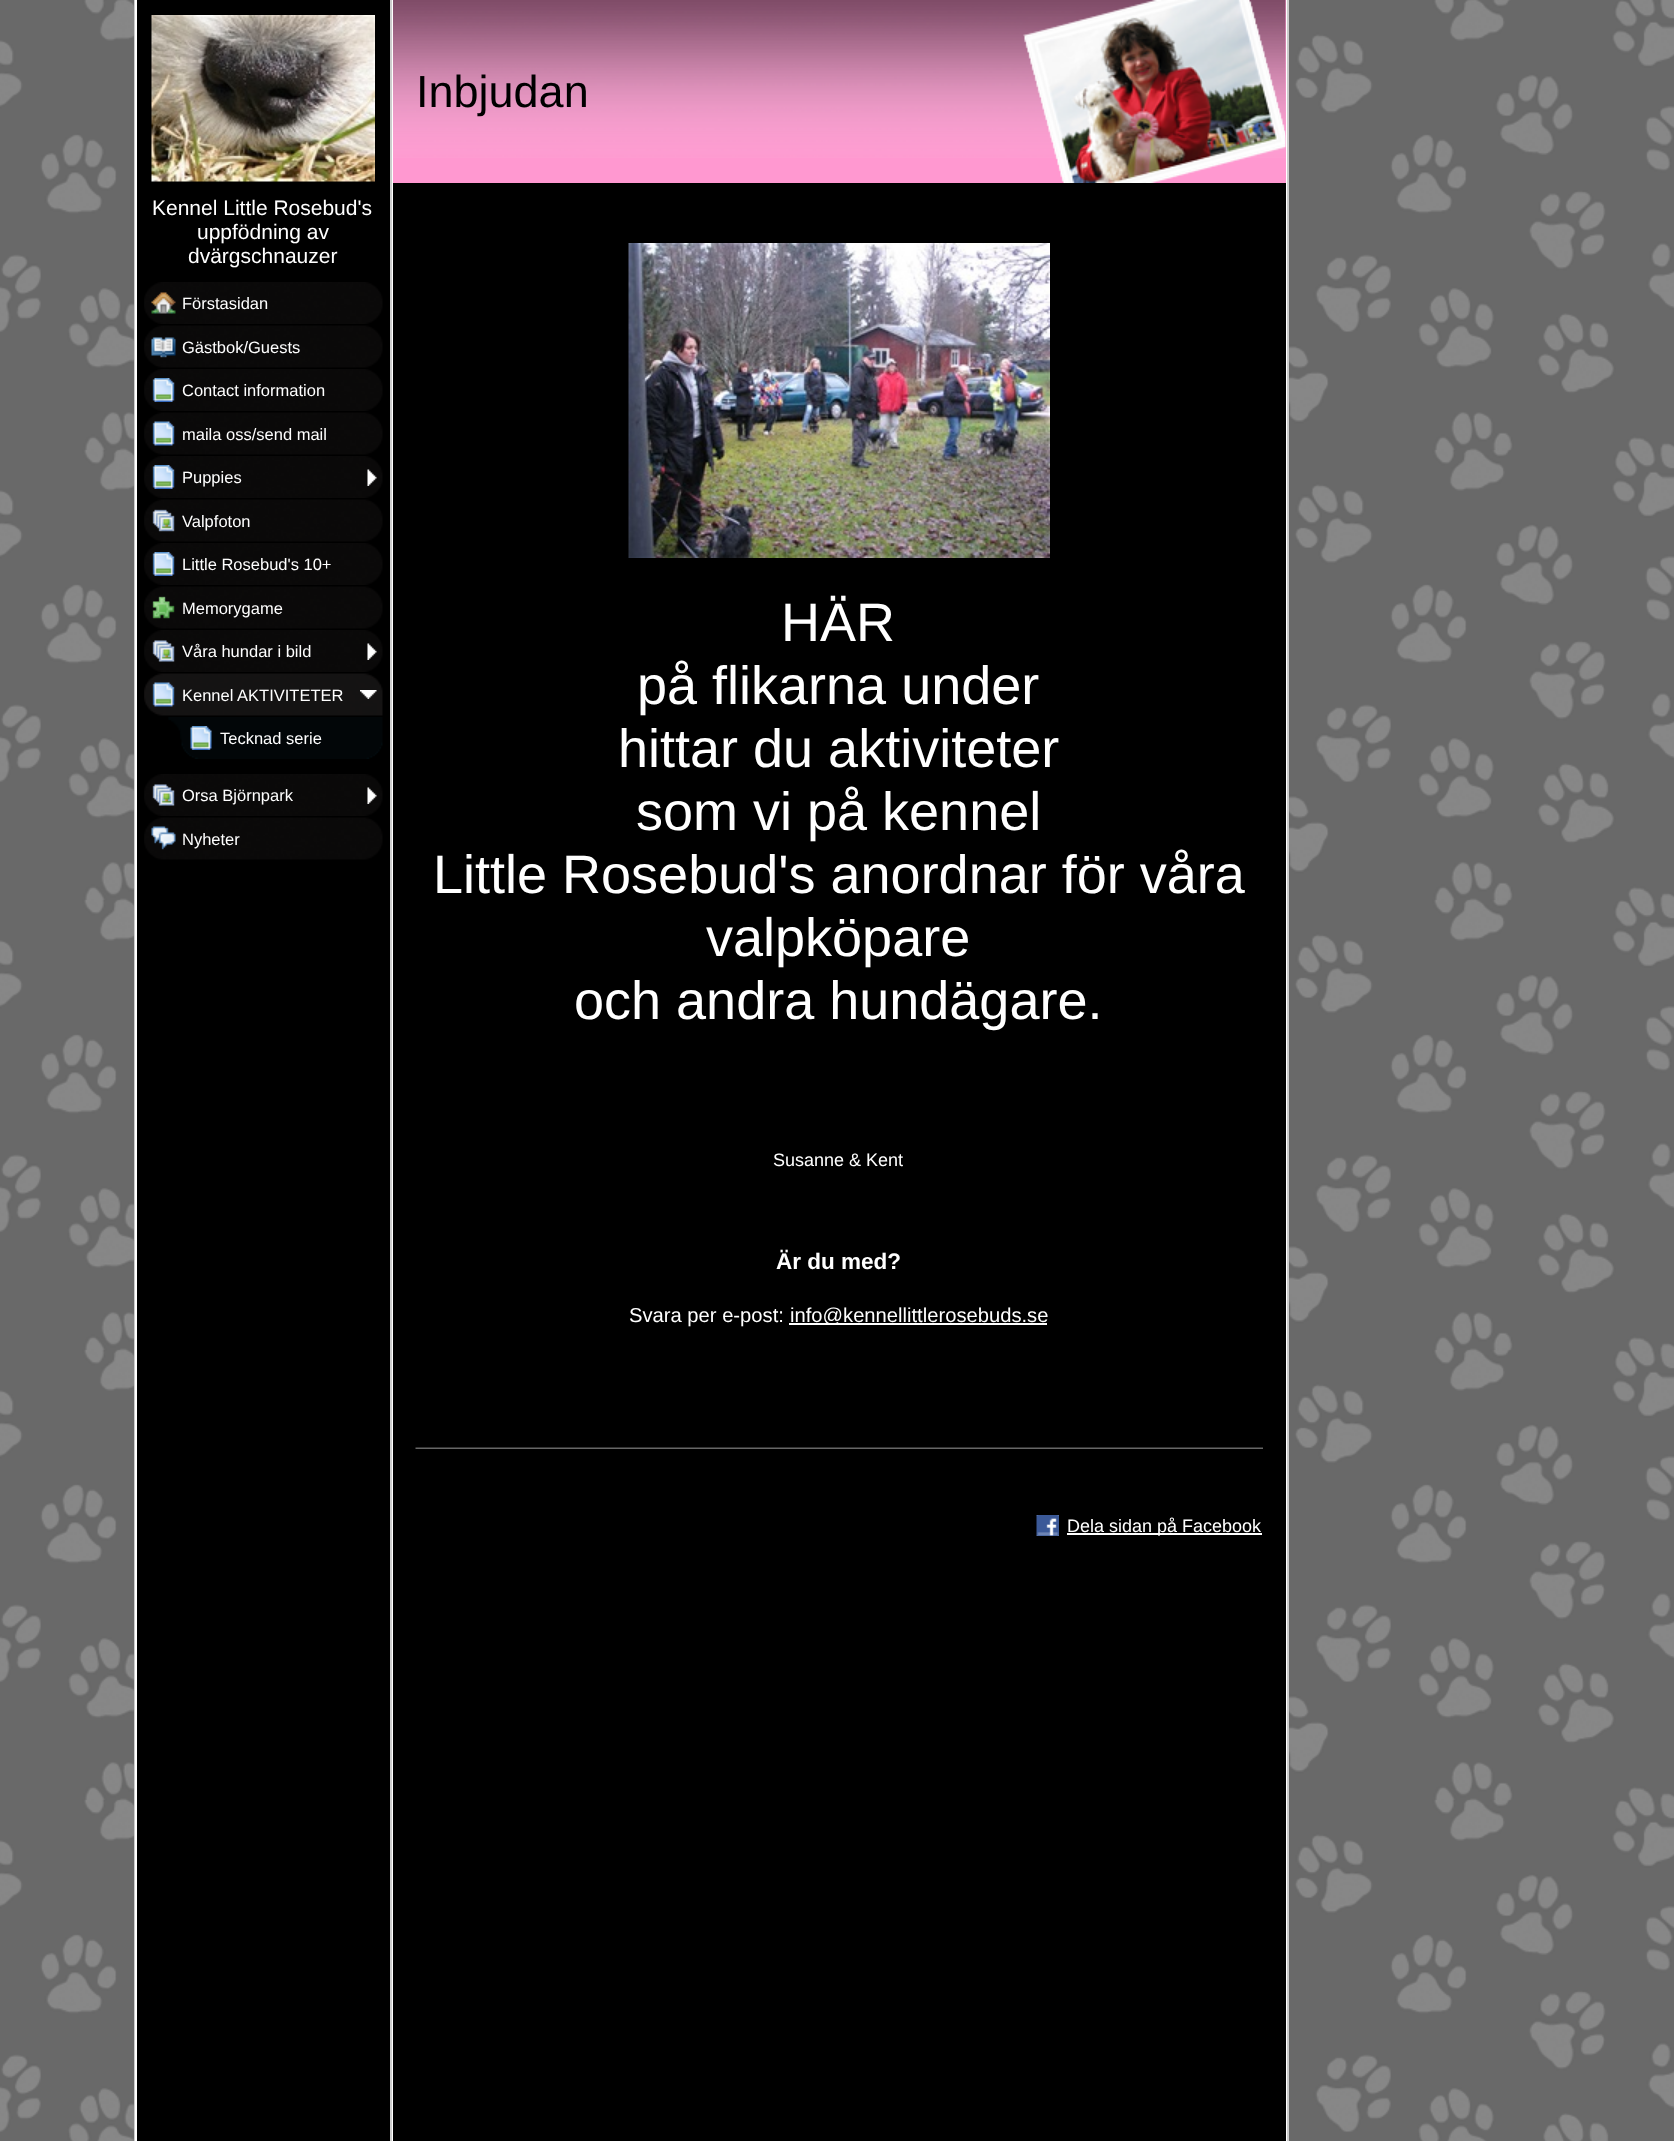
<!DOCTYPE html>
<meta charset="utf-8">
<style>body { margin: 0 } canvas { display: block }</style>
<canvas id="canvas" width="1674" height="2141"></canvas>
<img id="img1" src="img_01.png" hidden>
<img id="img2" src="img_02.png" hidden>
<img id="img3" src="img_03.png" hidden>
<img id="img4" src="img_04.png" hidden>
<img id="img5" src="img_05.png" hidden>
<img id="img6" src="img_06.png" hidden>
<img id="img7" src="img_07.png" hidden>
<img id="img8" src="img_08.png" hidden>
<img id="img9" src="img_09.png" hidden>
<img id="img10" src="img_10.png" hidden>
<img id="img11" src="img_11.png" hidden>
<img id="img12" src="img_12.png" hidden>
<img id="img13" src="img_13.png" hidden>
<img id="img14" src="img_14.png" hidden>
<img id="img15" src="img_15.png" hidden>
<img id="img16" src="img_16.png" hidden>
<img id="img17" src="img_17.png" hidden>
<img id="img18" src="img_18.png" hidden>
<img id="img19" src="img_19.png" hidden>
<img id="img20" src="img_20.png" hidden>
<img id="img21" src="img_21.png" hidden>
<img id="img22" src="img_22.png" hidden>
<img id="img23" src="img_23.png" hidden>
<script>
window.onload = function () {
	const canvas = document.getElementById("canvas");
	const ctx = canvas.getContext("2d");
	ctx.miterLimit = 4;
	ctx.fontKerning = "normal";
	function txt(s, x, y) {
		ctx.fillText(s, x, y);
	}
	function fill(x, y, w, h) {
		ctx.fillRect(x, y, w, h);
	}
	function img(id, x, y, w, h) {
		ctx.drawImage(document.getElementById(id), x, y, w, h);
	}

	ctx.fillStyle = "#FFFFFF";
	fill(0, 0, 1674, 2141);
	img("img1", 0, 0, 1674, 2141);
	fill(392, 0, 895, 2141);
	ctx.fillStyle = "#CCCCCC";
	fill(134, 0, 1, 2141);
	ctx.fillStyle = "#FFFFFF";
	fill(135, 0, 2, 2141);
	ctx.fillStyle = "#000000";
	fill(137, 0, 253, 2141);
	img("img2", 151, 15, 224, 167);
	img("img3", 144, 282, 239, 42);
	img("img4", 151, 292, 25, 22);
	img("img5", 144, 325, 239, 43);
	img("img6", 151, 337, 25, 21);
	img("img3", 144, 369, 239, 42);
	img("img7", 152, 378, 23, 24);
	img("img5", 144, 412, 239, 43);
	img("img8", 152, 421, 23, 25);
	img("img3", 144, 456, 239, 42);
	img("img7", 152, 465, 23, 24);
	img("img9", 367, 469, 10, 17);
	img("img5", 144, 499, 239, 43);
	img("img10", 152, 509, 23, 23);
	img("img3", 144, 543, 239, 42);
	img("img7", 152, 552, 23, 24);
	img("img5", 144, 586, 239, 43);
	img("img11", 152, 596, 23, 23);
	img("img3", 144, 630, 239, 42);
	img("img12", 152, 640, 23, 22);
	img("img9", 367, 643, 10, 17);
	img("img13", 144, 673, 239, 43);
	img("img14", 152, 682, 23, 25);
	img("img15", 360, 690, 17, 9);
	img("img16", 168, 717, 215, 42);
	img("img17", 190, 726, 22, 24);
	img("img3", 144, 774, 239, 42);
	img("img12", 152, 784, 23, 22);
	img("img9", 367, 787, 10, 17);
	img("img5", 144, 817, 239, 43);
	img("img18", 151, 826, 25, 24);
	ctx.fillStyle = "#CCCCCC";
	fill(390, 0, 2, 2141);
	ctx.fillStyle = "#000000";
	fill(393, 183, 893, 1958);
	ctx.fillStyle = "#FF98D0";
	fill(393, 0, 893, 183);
	img("img19", 393, 0, 893, 158);
	img("img20", 1023, 0, 263, 183);
	img("img21", 628, 243, 422, 315);
	ctx.fillStyle = "#FFFFFF";
	fill(789, 1323, 258, 2);
	img("img22", 415, 1447, 848, 2);
	img("img23", 1036, 1515, 23, 21);
	fill(1067, 1533, 195, 2);
	ctx.fillStyle = "#CCCCCC";
	fill(1287, 0, 2, 2141);
	ctx.font = "21px Liberation Sans";
	ctx.fillStyle = "#FFFFFF";
	txt("Kennel Little Rosebud's", 152, 215);
	txt("uppfödning av", 197, 239);
	txt("dvärgschnauzer", 188, 263);
	ctx.font = "16.5px Liberation Sans";
	txt("Förstasidan", 182, 309);
	txt("Gästbok/Guests", 182, 353);
	txt("Contact information", 182, 396);
	txt("maila oss/send mail", 182, 440);
	txt("Puppies", 182, 483);
	txt("Valpfoton", 182, 527);
	txt("Little Rosebud's 10+", 182, 570);
	txt("Memorygame", 182, 614);
	txt("Våra hundar i bild", 182, 657);
	txt("Kennel AKTIVITETER", 182, 701);
	txt("Tecknad serie", 220, 744);
	txt("Orsa Björnpark", 182, 801);
	txt("Nyheter", 182, 845);
	ctx.font = "45px Liberation Sans";
	ctx.fillStyle = "#000000";
	txt("Inbjudan", 416, 107);
	ctx.font = "54px Liberation Sans";
	ctx.fillStyle = "#FFFFFF";
	txt("HÄR", 781, 641);
	txt("på flikarna under", 637, 704);
	txt("hittar du aktiviteter", 618, 767);
	txt("som vi på kennel", 636, 830);
	txt("Little Rosebud's anordnar för våra", 433, 893);
	txt("valpköpare", 706, 956);
	txt("och andra hundägare.", 574, 1019);
	ctx.font = "18px Liberation Sans";
	txt("Susanne & Kent", 773, 1166);
	ctx.font = "bold 22.5px Liberation Sans";
	txt("Är du med?", 776, 1269);
	ctx.font = "20.2px Liberation Sans";
	txt("Svara per e-post:", 629, 1322);
	txt("info@kennellittlerosebuds.se", 790, 1322);
	ctx.font = "18px Liberation Sans";
	txt("Dela sidan på Facebook", 1067, 1532);
};
</script>
